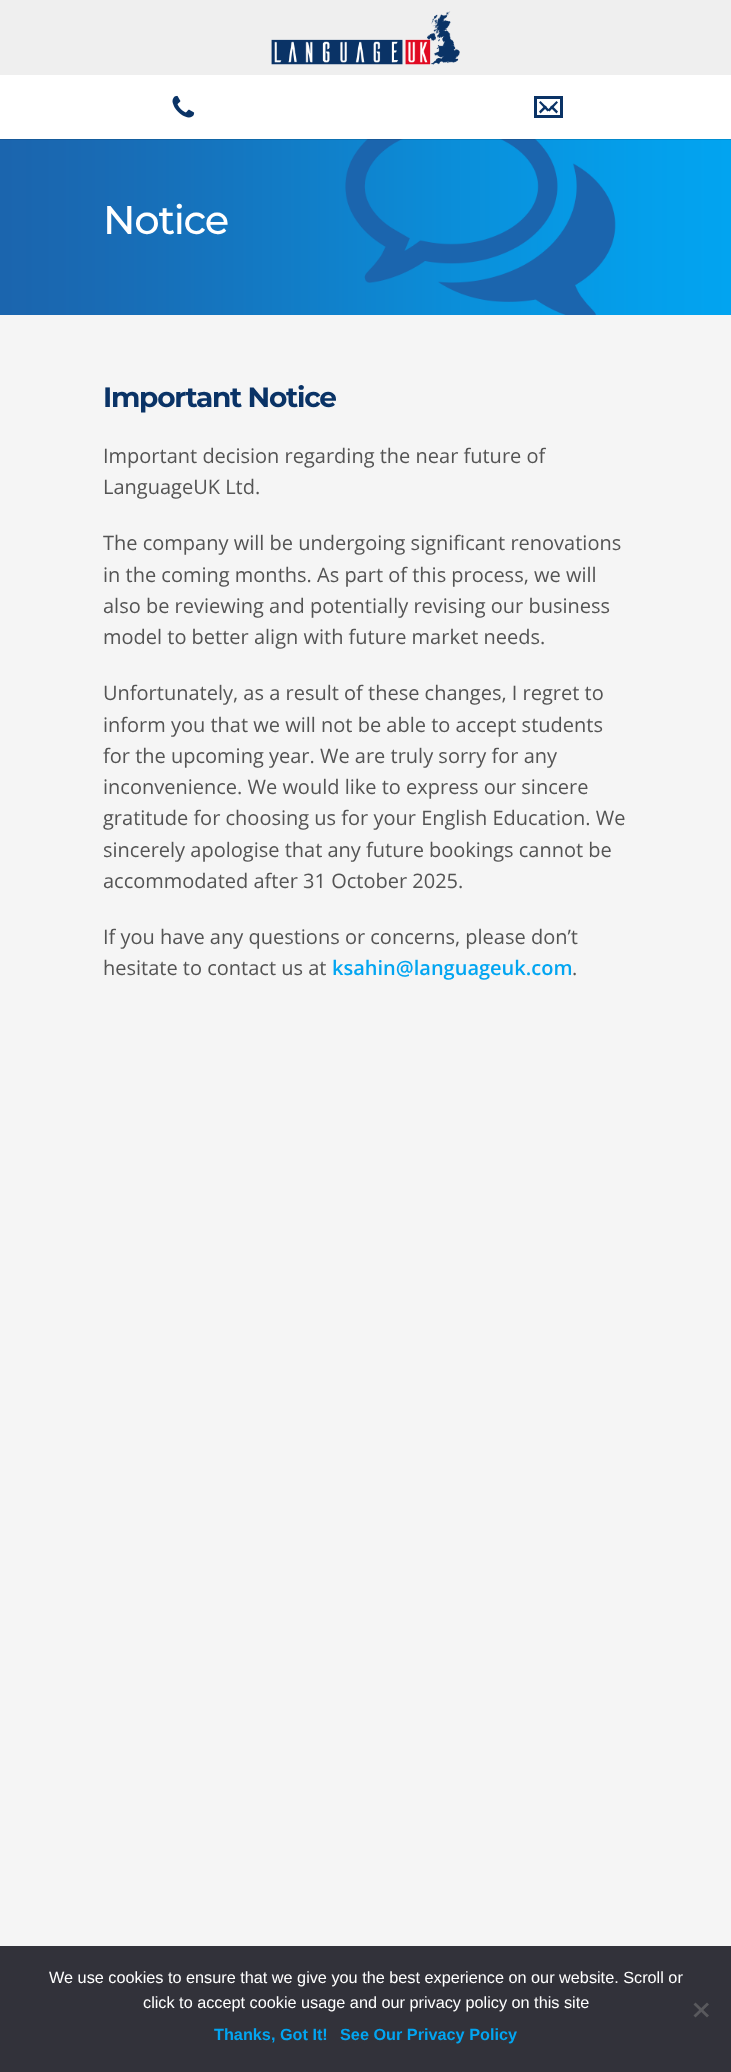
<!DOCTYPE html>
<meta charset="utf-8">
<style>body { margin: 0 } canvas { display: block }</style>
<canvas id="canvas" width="731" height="2072"></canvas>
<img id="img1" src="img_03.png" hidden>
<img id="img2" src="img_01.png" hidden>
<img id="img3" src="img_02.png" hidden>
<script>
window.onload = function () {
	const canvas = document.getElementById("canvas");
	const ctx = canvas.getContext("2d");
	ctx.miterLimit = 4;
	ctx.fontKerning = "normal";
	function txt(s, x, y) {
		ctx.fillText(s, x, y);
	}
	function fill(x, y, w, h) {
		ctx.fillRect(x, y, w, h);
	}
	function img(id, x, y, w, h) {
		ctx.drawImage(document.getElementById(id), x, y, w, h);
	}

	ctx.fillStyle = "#F5F5F5";
	fill(0, 0, 731, 2072);
	img("img1", 0, 139, 731, 176);
	ctx.fillStyle = "rgba(0, 0, 0, 0.12)";
	ctx.filter = "blur(0.5px)";
	ctx.beginPath();
	ctx.rect(-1, 74, 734, 66);
	ctx.fill();
	ctx.filter = "none";
	ctx.fillStyle = "#EFEFEF";
	fill(0, 0, 731, 75);
	img("img2", 271, 11, 189, 54);
	ctx.fillStyle = "#FFFFFF";
	fill(0, 75, 731, 64);
	img("img3", 172, 95, 23, 23);
	ctx.strokeStyle = "#0A3366";
	ctx.lineWidth = 3;
	ctx.strokeRect(535.5, 97.5, 26, 19);
	ctx.fillStyle = "#0A3366";
	ctx.beginPath();
	ctx.moveTo(545, 105.5);
	ctx.lineTo(547, 107);
	ctx.lineTo(540.5, 113.5);
	ctx.lineTo(539, 111.5);
	ctx.closePath();
	ctx.fill();
	ctx.beginPath();
	ctx.moveTo(539, 102.5);
	ctx.lineTo(540.5, 101);
	ctx.lineTo(549.5, 110);
	ctx.lineTo(547.5, 111.5);
	ctx.closePath();
	ctx.fill();
	ctx.beginPath();
	ctx.moveTo(556.5, 101);
	ctx.lineTo(558, 102.5);
	ctx.lineTo(549.5, 111.5);
	ctx.lineTo(547.5, 110);
	ctx.closePath();
	ctx.fill();
	ctx.beginPath();
	ctx.moveTo(550, 107);
	ctx.lineTo(552, 105.5);
	ctx.lineTo(558, 111.5);
	ctx.lineTo(556.5, 113.5);
	ctx.closePath();
	ctx.fill();
	ctx.fillStyle = "#32323A";
	fill(0, 1946, 731, 126);
	ctx.fillStyle = "#59595D";
	ctx.beginPath();
	ctx.moveTo(707, 2002.5);
	ctx.lineTo(709, 2004.5);
	ctx.lineTo(695.5, 2017.5);
	ctx.lineTo(693.5, 2015.5);
	ctx.closePath();
	ctx.fill();
	ctx.beginPath();
	ctx.moveTo(693.5, 2004.5);
	ctx.lineTo(695.5, 2002.5);
	ctx.lineTo(709, 2015.5);
	ctx.lineTo(707, 2017.5);
	ctx.closePath();
	ctx.fill();
	ctx.letterSpacing = "-1.25px";
	ctx.font = "500 40px Montserrat";
	ctx.fillStyle = "#FFFFFF";
	txt("Notice", 103, 234);
	ctx.font = "bold 28px Montserrat";
	ctx.fillStyle = "#0A3366";
	txt("Important Notice", 103, 407);
	ctx.letterSpacing = "0px";
	ctx.font = "20px Open Sans";
	ctx.fillStyle = "#545454";
	txt("Important decision regarding the near future of", 103, 463);
	txt("LanguageUK Ltd.", 103, 494);
	txt("The company will be undergoing significant renovations", 103, 550);
	txt("in the coming months. As part of this process, we will", 103, 582);
	txt("also be reviewing and potentially revising our business", 103, 613);
	txt("model to better align with future market needs.", 103, 644);
	txt("Unfortunately, as a result of these changes, I regret to", 103, 700);
	txt("inform you that we will not be able to accept students", 103, 732);
	txt("for the upcoming year. We are truly sorry for any", 103, 763);
	txt("inconvenience. We would like to express our sincere", 103, 794);
	txt("gratitude for choosing us for your English Education. We", 103, 825);
	txt("sincerely apologise that any future bookings cannot be", 103, 857);
	txt("accommodated after 31 October 2025.", 103, 888);
	txt("If you have any questions or concerns, please don’t", 103, 944);
	txt("hesitate to contact us at", 103, 975);
	ctx.font = "600 20px Open Sans";
	ctx.fillStyle = "#02A5F1";
	txt("ksahin@languageuk.com", 332, 975);
	ctx.font = "20px Open Sans";
	ctx.fillStyle = "#545454";
	txt(".", 572, 975);
	ctx.font = "16.25px Liberation Sans";
	ctx.fillStyle = "#FFFFFF";
	txt("We use cookies to ensure that we give you the best experience on our website. Scroll or", 49, 1983);
	txt("click to accept cookie usage and our privacy policy on this site", 143, 2008);
	ctx.font = "bold 16.25px Liberation Sans";
	ctx.fillStyle = "#02A5F1";
	txt("Thanks, Got It!", 214, 2040);
	txt("See Our Privacy Policy", 340, 2040);
};
</script>
